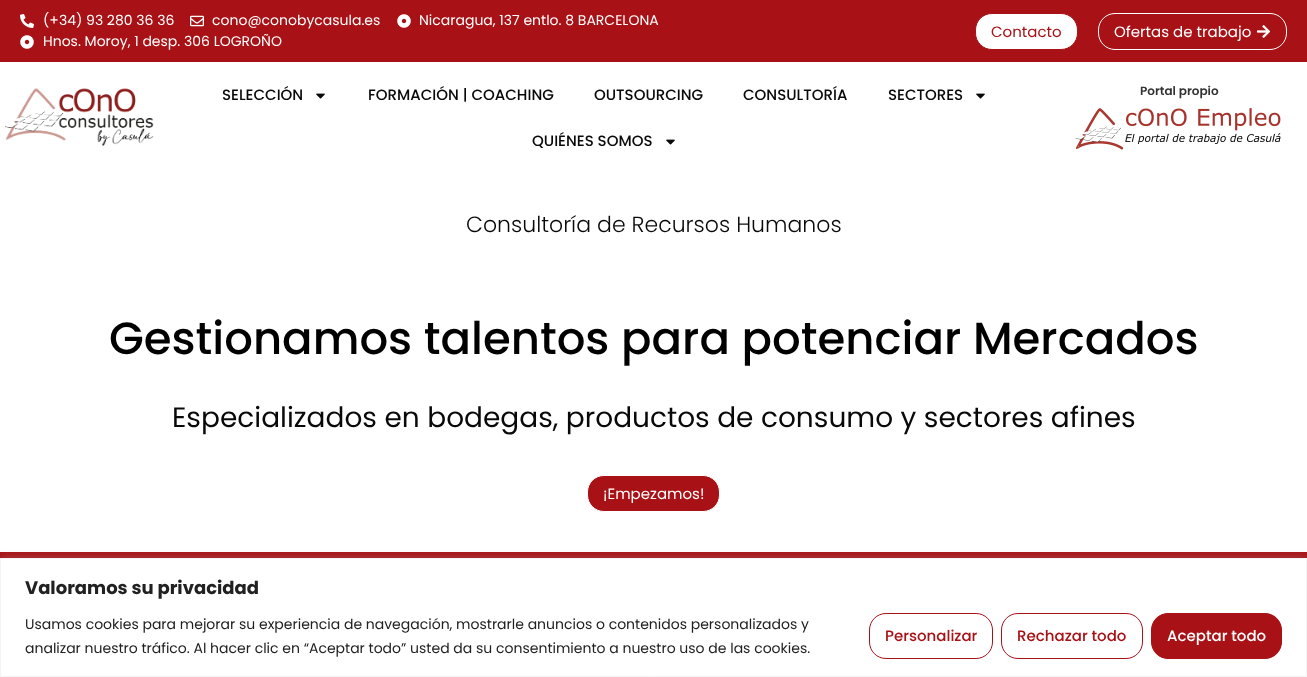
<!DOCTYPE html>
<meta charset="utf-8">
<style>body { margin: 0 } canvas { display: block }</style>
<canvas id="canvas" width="1307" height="677"></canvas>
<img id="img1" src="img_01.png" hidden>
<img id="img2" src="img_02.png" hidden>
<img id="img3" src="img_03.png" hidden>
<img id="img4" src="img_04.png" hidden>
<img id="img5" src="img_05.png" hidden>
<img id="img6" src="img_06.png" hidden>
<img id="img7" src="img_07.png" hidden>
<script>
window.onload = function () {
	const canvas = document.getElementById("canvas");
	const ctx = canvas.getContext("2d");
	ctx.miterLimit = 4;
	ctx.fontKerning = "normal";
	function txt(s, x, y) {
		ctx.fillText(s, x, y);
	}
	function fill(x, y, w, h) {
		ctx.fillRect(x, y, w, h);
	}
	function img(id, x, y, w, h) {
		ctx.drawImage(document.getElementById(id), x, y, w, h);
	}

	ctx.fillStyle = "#FFFFFF";
	fill(0, 0, 1307, 677);
	ctx.fillStyle = "#A81115";
	fill(0, 0, 1307, 62);
	img("img1", 20, 14, 14, 14);
	img("img2", 190, 15, 14, 12);
	img("img3", 397, 14, 14, 14);
	img("img3", 20, 35, 14, 14);
	ctx.fillStyle = "#FFFFFF";
	ctx.beginPath();
	ctx.roundRect(975.5, 13.5, 102, 36, 16.5);
	ctx.fill();
	ctx.strokeStyle = "#A81115";
	ctx.stroke();
	ctx.beginPath();
	ctx.roundRect(1098.5, 13.5, 188, 36, 16.5);
	ctx.strokeStyle = "#FFFFFF";
	ctx.stroke();
	img("img4", 1256, 25, 14, 13);
	img("img5", 5, 88, 149, 58);
	img("img6", 316, 93, 9, 6);
	img("img6", 976, 93, 9, 6);
	img("img6", 666, 139, 9, 6);
	img("img7", 1075, 108, 206, 42);
	ctx.fillStyle = "#A81115";
	ctx.beginPath();
	ctx.roundRect(587.5, 475.5, 132, 36, 16.5);
	ctx.fill();
	ctx.stroke();
	fill(0, 552, 1307, 6);
	ctx.fillStyle = "rgba(172, 171, 171, 0.3)";
	ctx.filter = "blur(5px)";
	ctx.beginPath();
	ctx.rect(0, 557, 1307, 119);
	ctx.fill();
	ctx.filter = "none";
	ctx.fillStyle = "#FFFFFF";
	ctx.beginPath();
	ctx.rect(0.5, 558.5, 1306, 118);
	ctx.fill();
	ctx.strokeStyle = "#F4F4F4";
	ctx.stroke();
	ctx.beginPath();
	ctx.roundRect(869.5, 613.5, 123, 45, 16.5);
	ctx.strokeStyle = "#A81115";
	ctx.stroke();
	ctx.beginPath();
	ctx.roundRect(1001.5, 613.5, 141, 45, 16.5);
	ctx.stroke();
	ctx.fillStyle = "#A81115";
	ctx.beginPath();
	ctx.roundRect(1151.5, 613.5, 130, 45, 16.5);
	ctx.fill();
	ctx.stroke();
	ctx.font = "14px Poppins";
	ctx.fillStyle = "#FFFFFF";
	txt("(+34) 93 280 36 36", 43, 25);
	txt("cono@conobycasula.es", 212, 25);
	txt("Nicaragua, 137 entlo. 8 BARCELONA", 419, 25);
	txt("Hnos. Moroy, 1 desp. 306 LOGROÑO", 43, 46);
	ctx.font = "15px Poppins";
	ctx.fillStyle = "#A81115";
	txt("Contacto", 991, 37);
	ctx.fillStyle = "#FFFFFF";
	txt("Ofertas de trabajo", 1114, 37);
	ctx.font = "500 15px Poppins";
	ctx.fillStyle = "#090909";
	txt("SELECCIÓN", 222, 100);
	txt("FORMACIÓN | COACHING", 368, 100);
	txt("OUTSOURCING", 594, 100);
	txt("CONSULTORÍA", 743, 100);
	txt("SECTORES", 888, 100);
	txt("QUIÉNES SOMOS", 532, 146);
	ctx.font = "600 12px Poppins";
	ctx.fillStyle = "#333333";
	txt("Portal propio", 1140, 95);
	ctx.font = "300 22px Poppins";
	ctx.fillStyle = "#090909";
	txt("Consultoría de Recursos Humanos", 466, 232);
	ctx.font = "500 45px Poppins";
	ctx.fillStyle = "#000000";
	txt("Gestionamos talentos para potenciar Mercados", 109, 354);
	ctx.font = "28px Poppins";
	ctx.fillStyle = "#090909";
	txt("Especializados en bodegas, productos de consumo y sectores afines", 172, 427);
	ctx.font = "15px Poppins";
	ctx.fillStyle = "#FFFFFF";
	txt("¡Empezamos!", 603, 499);
	ctx.font = "bold 18px Poppins";
	ctx.fillStyle = "#212121";
	txt("Valoramos su privacidad", 25, 594);
	ctx.font = "14px Poppins";
	txt("Usamos cookies para mejorar su experiencia de navegación, mostrarle anuncios o contenidos personalizados y", 25, 629);
	txt("analizar nuestro tráfico. Al hacer clic en “Aceptar todo” usted da su consentimiento a nuestro uso de las cookies.", 25, 653);
	ctx.font = "500 15px Poppins";
	ctx.fillStyle = "#A81115";
	txt("Personalizar", 885, 641);
	txt("Rechazar todo", 1017, 641);
	ctx.fillStyle = "#FFFFFF";
	txt("Aceptar todo", 1167, 641);
};
</script>
